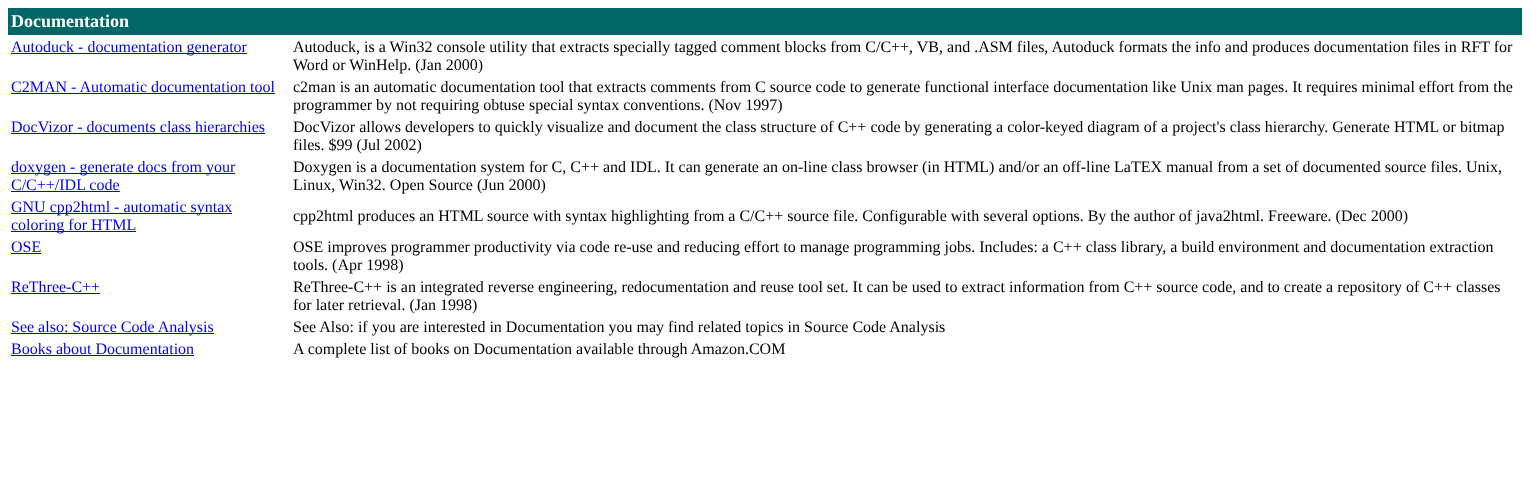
<!DOCTYPE html>
<meta charset="utf-8">
<style>body { margin: 0 } canvas { display: block }</style>
<canvas id="canvas" width="1530" height="504"></canvas>
<script>
window.onload = function () {
	const canvas = document.getElementById("canvas");
	const ctx = canvas.getContext("2d");
	ctx.miterLimit = 4;
	ctx.fontKerning = "normal";
	function txt(s, x, y) {
		ctx.fillText(s, x, y);
	}
	function fill(x, y, w, h) {
		ctx.fillRect(x, y, w, h);
	}

	ctx.fillStyle = "#FFFFFF";
	fill(0, 0, 1530, 504);
	ctx.fillStyle = "#006666";
	fill(8, 8, 1514, 27);
	ctx.fillStyle = "#0000EE";
	fill(11, 53, 236, 1);
	fill(11, 93, 264, 1);
	fill(11, 133, 254, 1);
	fill(11, 173, 224, 1);
	fill(11, 191, 109, 1);
	fill(11, 213, 221, 1);
	fill(11, 231, 125, 1);
	fill(11, 253, 30, 1);
	fill(11, 293, 89, 1);
	fill(11, 333, 203, 1);
	fill(11, 355, 183, 1);
	ctx.font = "bold 18px Liberation Serif";
	ctx.fillStyle = "#FFFFFF";
	txt("Documentation", 11, 27);
	ctx.font = "16px Liberation Serif";
	ctx.fillStyle = "#0000EE";
	txt("Autoduck - documentation generator", 11, 52);
	ctx.fillStyle = "#000000";
	txt("Autoduck, is a Win32 console utility that extracts specially tagged comment blocks from C/C++, VB, and .ASM files, Autoduck formats the info and produces documentation files in RFT for", 293, 52);
	txt("Word or WinHelp. (Jan 2000)", 293, 70);
	ctx.fillStyle = "#0000EE";
	txt("C2MAN - Automatic documentation tool", 11, 92);
	ctx.fillStyle = "#000000";
	txt("c2man is an automatic documentation tool that extracts comments from C source code to generate functional interface documentation like Unix man pages. It requires minimal effort from the", 293, 92);
	txt("programmer by not requiring obtuse special syntax conventions. (Nov 1997)", 293, 110);
	ctx.fillStyle = "#0000EE";
	txt("DocVizor - documents class hierarchies", 11, 132);
	ctx.fillStyle = "#000000";
	txt("DocVizor allows developers to quickly visualize and document the class structure of C++ code by generating a color-keyed diagram of a project's class hierarchy. Generate HTML or bitmap", 293, 132);
	txt("files. $99 (Jul 2002)", 293, 150);
	ctx.fillStyle = "#0000EE";
	txt("doxygen - generate docs from your", 11, 172);
	txt("C/C++/IDL code", 11, 190);
	ctx.fillStyle = "#000000";
	txt("Doxygen is a documentation system for C, C++ and IDL. It can generate an on-line class browser (in HTML) and/or an off-line LaTEX manual from a set of documented source files. Unix,", 293, 172);
	txt("Linux, Win32. Open Source (Jun 2000)", 293, 190);
	ctx.fillStyle = "#0000EE";
	txt("GNU cpp2html - automatic syntax", 11, 212);
	txt("coloring for HTML", 11, 230);
	ctx.fillStyle = "#000000";
	txt("cpp2html produces an HTML source with syntax highlighting from a C/C++ source file. Configurable with several options. By the author of java2html. Freeware. (Dec 2000)", 293, 221);
	ctx.fillStyle = "#0000EE";
	txt("OSE", 11, 252);
	ctx.fillStyle = "#000000";
	txt("OSE improves programmer productivity via code re-use and reducing effort to manage programming jobs. Includes: a C++ class library, a build environment and documentation extraction", 293, 252);
	txt("tools. (Apr 1998)", 293, 270);
	ctx.fillStyle = "#0000EE";
	txt("ReThree-C++", 11, 292);
	ctx.fillStyle = "#000000";
	txt("ReThree-C++ is an integrated reverse engineering, redocumentation and reuse tool set. It can be used to extract information from C++ source code, and to create a repository of C++ classes", 293, 292);
	txt("for later retrieval. (Jan 1998)", 293, 310);
	ctx.fillStyle = "#0000EE";
	txt("See also: Source Code Analysis", 11, 332);
	ctx.fillStyle = "#000000";
	txt("See Also: if you are interested in Documentation you may find related topics in Source Code Analysis", 293, 332);
	ctx.fillStyle = "#0000EE";
	txt("Books about Documentation", 11, 354);
	ctx.fillStyle = "#000000";
	txt("A complete list of books on Documentation available through Amazon.COM", 293, 354);
};
</script>
